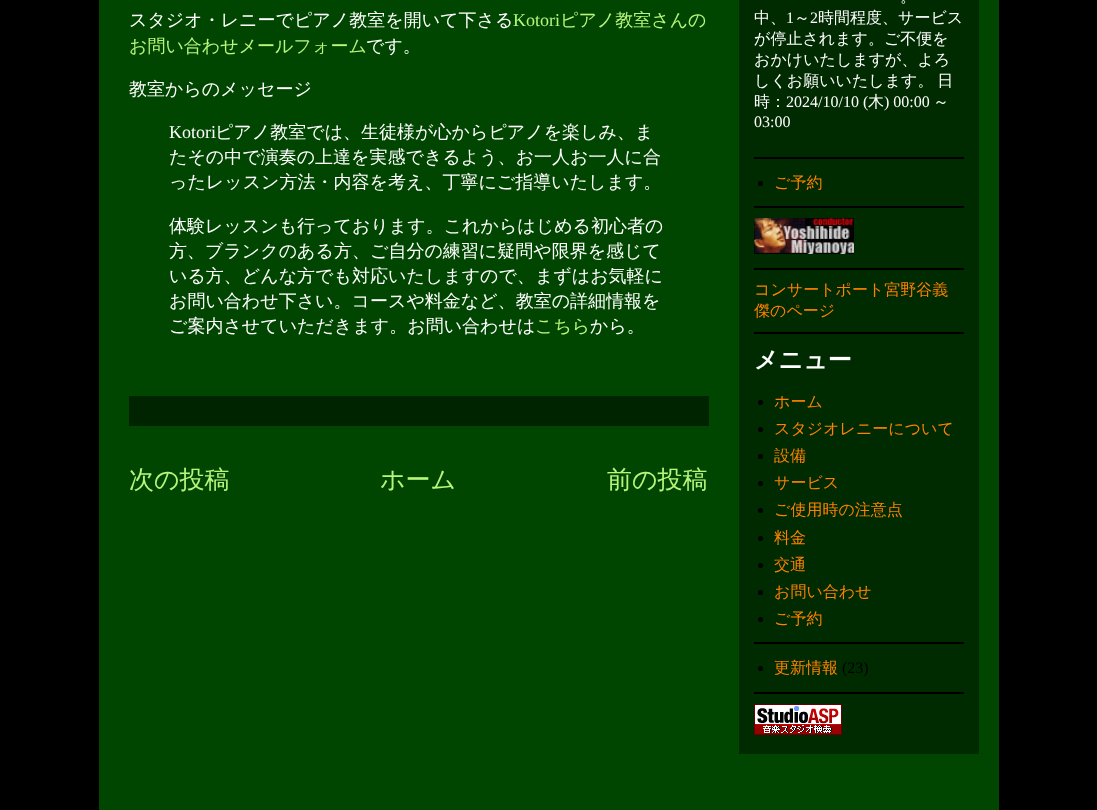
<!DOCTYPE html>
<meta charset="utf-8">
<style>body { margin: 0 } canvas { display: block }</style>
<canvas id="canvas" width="1097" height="810"></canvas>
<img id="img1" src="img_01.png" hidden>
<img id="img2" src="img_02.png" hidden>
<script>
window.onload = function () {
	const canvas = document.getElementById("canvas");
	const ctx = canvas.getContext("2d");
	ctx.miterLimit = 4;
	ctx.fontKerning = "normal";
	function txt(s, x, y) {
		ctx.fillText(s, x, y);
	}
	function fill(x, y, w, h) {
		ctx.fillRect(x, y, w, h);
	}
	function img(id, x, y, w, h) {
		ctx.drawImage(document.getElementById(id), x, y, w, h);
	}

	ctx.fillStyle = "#000000";
	fill(0, 0, 1097, 810);
	ctx.fillStyle = "#004600";
	fill(99, 0, 900, 810);
	ctx.fillStyle = "#002300";
	fill(129, 396, 580, 30);
	ctx.fillStyle = "#002A00";
	fill(739, 0, 240, 754);
	ctx.fillStyle = "#000000";
	fill(754, 157, 210, 2);
	fill(754, 206, 210, 2);
	ctx.beginPath();
	ctx.arc(760.5, 183.5, 2.5, 0, Math.PI * 2);
	ctx.fill();
	fill(754, 268, 210, 2);
	img("img1", 754, 218, 100, 36);
	fill(754, 332, 210, 2);
	fill(754, 642, 210, 2);
	ctx.beginPath();
	ctx.arc(760.5, 402.5, 2.5, 0, Math.PI * 2);
	ctx.fill();
	ctx.beginPath();
	ctx.arc(760.5, 429.5, 2.5, 0, Math.PI * 2);
	ctx.fill();
	ctx.beginPath();
	ctx.arc(760.5, 456.5, 2.5, 0, Math.PI * 2);
	ctx.fill();
	ctx.beginPath();
	ctx.arc(760.5, 483.5, 2.5, 0, Math.PI * 2);
	ctx.fill();
	ctx.beginPath();
	ctx.arc(760.5, 510.5, 2.5, 0, Math.PI * 2);
	ctx.fill();
	ctx.beginPath();
	ctx.arc(760.5, 538.5, 2.5, 0, Math.PI * 2);
	ctx.fill();
	ctx.beginPath();
	ctx.arc(760.5, 565.5, 2.5, 0, Math.PI * 2);
	ctx.fill();
	ctx.beginPath();
	ctx.arc(760.5, 592.5, 2.5, 0, Math.PI * 2);
	ctx.fill();
	ctx.beginPath();
	ctx.arc(760.5, 619.5, 2.5, 0, Math.PI * 2);
	ctx.fill();
	fill(754, 692, 210, 2);
	ctx.beginPath();
	ctx.arc(760.5, 668.5, 2.5, 0, Math.PI * 2);
	ctx.fill();
	img("img2", 754, 704, 88, 31);
	ctx.font = "500 18px WenQuanYi Zen Hei";
	ctx.fillStyle = "#FFFFFF";
	txt("スタジオ・レニーでピアノ教室を開いて下さる", 129, 26);
	ctx.font = "18px Liberation Serif";
	ctx.fillStyle = "#B8F57B";
	txt("Kotori", 513, 26);
	ctx.font = "500 18px WenQuanYi Zen Hei";
	txt("ピアノ教室さんの", 560, 26);
	txt("お問い合わせメールフォーム", 129, 52);
	ctx.fillStyle = "#FFFFFF";
	txt("です。", 366, 52);
	txt("教室からのメッセージ", 129, 95);
	ctx.font = "18px Liberation Serif";
	txt("Kotori", 169, 138);
	ctx.font = "500 18px WenQuanYi Zen Hei";
	txt("ピアノ教室では、生徒様が心からピアノを楽しみ、ま", 215, 138);
	txt("たその中で演奏の上達を実感できるよう、お一人お一人に合", 169, 163);
	txt("ったレッスン方法・内容を考え、丁寧にご指導いたします。", 169, 188);
	txt("体験レッスンも行っております。これからはじめる初心者の", 169, 232);
	txt("方、ブランクのある方、ご自分の練習に疑問や限界を感じて", 169, 257);
	txt("いる方、どんな方でも対応いたしますので、まずはお気軽に", 169, 282);
	txt("お問い合わせ下さい。コースや料金など、教室の詳細情報を", 169, 307);
	txt("ご案内させていただきます。お問い合わせは", 169, 332);
	ctx.fillStyle = "#B8F57B";
	txt("こちら", 535, 332);
	ctx.fillStyle = "#FFFFFF";
	txt("から。", 590, 332);
	ctx.font = "500 25px WenQuanYi Zen Hei";
	ctx.fillStyle = "#B8F57B";
	txt("次の投稿", 129, 488);
	txt("ホーム", 380, 488);
	txt("前の投稿", 607, 488);
	ctx.font = "500 16px WenQuanYi Zen Hei";
	ctx.fillStyle = "#FFFFFF";
	txt("。", 900, 2);
	txt("中、", 754, 23);
	ctx.font = "16px Liberation Serif";
	txt("1", 786, 23);
	ctx.font = "500 16px WenQuanYi Zen Hei";
	txt("～", 794, 23);
	ctx.font = "16px Liberation Serif";
	txt("2", 810, 23);
	ctx.font = "500 16px WenQuanYi Zen Hei";
	txt("時間程度、サービス", 818, 23);
	txt("が停止されます。ご不便を", 754, 44);
	txt("おかけいたしますが、よろ", 754, 65);
	ctx.wordSpacing = "-1px";
	txt("しくお願いいたします。 日", 754, 86);
	ctx.wordSpacing = "0px";
	txt("時：", 754, 107);
	ctx.font = "16px Liberation Serif";
	txt("2024/10/10 (", 786, 107);
	ctx.font = "500 16px WenQuanYi Zen Hei";
	txt("木", 868, 107);
	ctx.font = "16px Liberation Serif";
	txt(") 00:00", 884, 107);
	ctx.font = "500 16px WenQuanYi Zen Hei";
	txt("～", 933, 107);
	ctx.font = "16px Liberation Serif";
	txt("03:00", 754, 127);
	ctx.font = "500 16px WenQuanYi Zen Hei";
	ctx.fillStyle = "#FF8100";
	txt("ご予約", 774, 188);
	txt("コンサートポート宮野谷義", 754, 295);
	txt("傑のページ", 754, 316);
	ctx.font = "bold 24px WenQuanYi Zen Hei";
	ctx.fillStyle = "#FFFFFF";
	txt("メニュー", 754, 368);
	ctx.font = "500 16px WenQuanYi Zen Hei";
	ctx.fillStyle = "#FF8100";
	txt("ホーム", 774, 407);
	txt("スタジオレニーについて", 774, 434);
	txt("設備", 774, 461);
	txt("サービス", 774, 488);
	txt("ご使用時の注意点", 774, 515);
	txt("料金", 774, 543);
	txt("交通", 774, 570);
	txt("お問い合わせ", 774, 597);
	txt("ご予約", 774, 624);
	txt("更新情報", 774, 673);
	ctx.font = "16px Liberation Serif";
	ctx.fillStyle = "#000000";
	txt("(23)", 842, 673);
};
</script>
